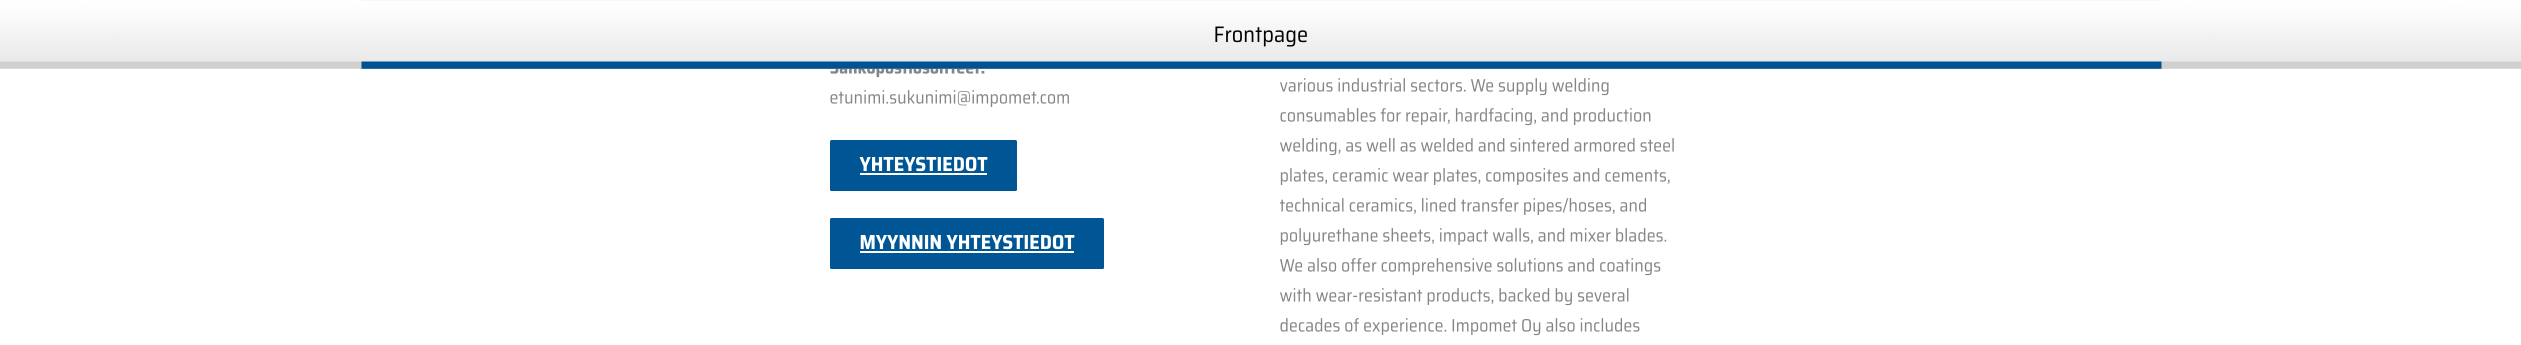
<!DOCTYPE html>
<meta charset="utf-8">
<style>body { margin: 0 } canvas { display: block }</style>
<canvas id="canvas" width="2521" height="345"></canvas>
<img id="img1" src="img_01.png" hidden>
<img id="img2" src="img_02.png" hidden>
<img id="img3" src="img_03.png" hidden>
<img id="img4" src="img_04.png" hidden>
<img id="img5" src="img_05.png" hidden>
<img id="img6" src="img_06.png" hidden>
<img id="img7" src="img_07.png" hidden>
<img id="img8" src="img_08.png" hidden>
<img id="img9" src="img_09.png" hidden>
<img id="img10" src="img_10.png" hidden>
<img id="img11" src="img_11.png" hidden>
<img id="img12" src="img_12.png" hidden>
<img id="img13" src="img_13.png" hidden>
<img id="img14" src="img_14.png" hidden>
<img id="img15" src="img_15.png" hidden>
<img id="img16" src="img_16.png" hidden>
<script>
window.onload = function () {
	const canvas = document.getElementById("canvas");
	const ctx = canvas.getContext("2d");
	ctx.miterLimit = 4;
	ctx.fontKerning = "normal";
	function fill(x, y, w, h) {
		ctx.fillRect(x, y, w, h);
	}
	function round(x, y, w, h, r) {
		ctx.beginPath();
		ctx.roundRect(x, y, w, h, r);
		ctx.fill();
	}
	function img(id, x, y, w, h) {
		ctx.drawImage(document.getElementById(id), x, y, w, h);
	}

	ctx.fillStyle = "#FFFFFF";
	fill(0, 0, 2521, 345);
	img("img1", 0, 0, 2521, 69);
	img("img2", 361, 0, 1801, 69);
	img("img3", 1215, 26, 92, 21);
	img("img4", 830, 69, 155, 9);
	img("img5", 830, 90, 239, 17);
	ctx.fillStyle = "#005695";
	round(830, 140, 187, 51, 1.5);
	img("img6", 859, 156, 129, 16);
	ctx.fillStyle = "#FFFFFF";
	fill(860, 173, 127, 2);
	ctx.fillStyle = "#005695";
	round(830, 218, 274, 51, 1.5);
	img("img7", 860, 234, 215, 16);
	ctx.fillStyle = "#FFFFFF";
	fill(860, 251, 214, 2);
	img("img8", 1280, 78, 329, 18);
	img("img9", 1280, 108, 371, 18);
	img("img10", 1280, 138, 394, 18);
	img("img11", 1280, 168, 390, 17);
	img("img12", 1279, 198, 367, 17);
	img("img13", 1280, 228, 387, 18);
	img("img14", 1280, 258, 381, 18);
	img("img15", 1280, 288, 349, 18);
	img("img16", 1280, 318, 360, 18);
};
</script>
